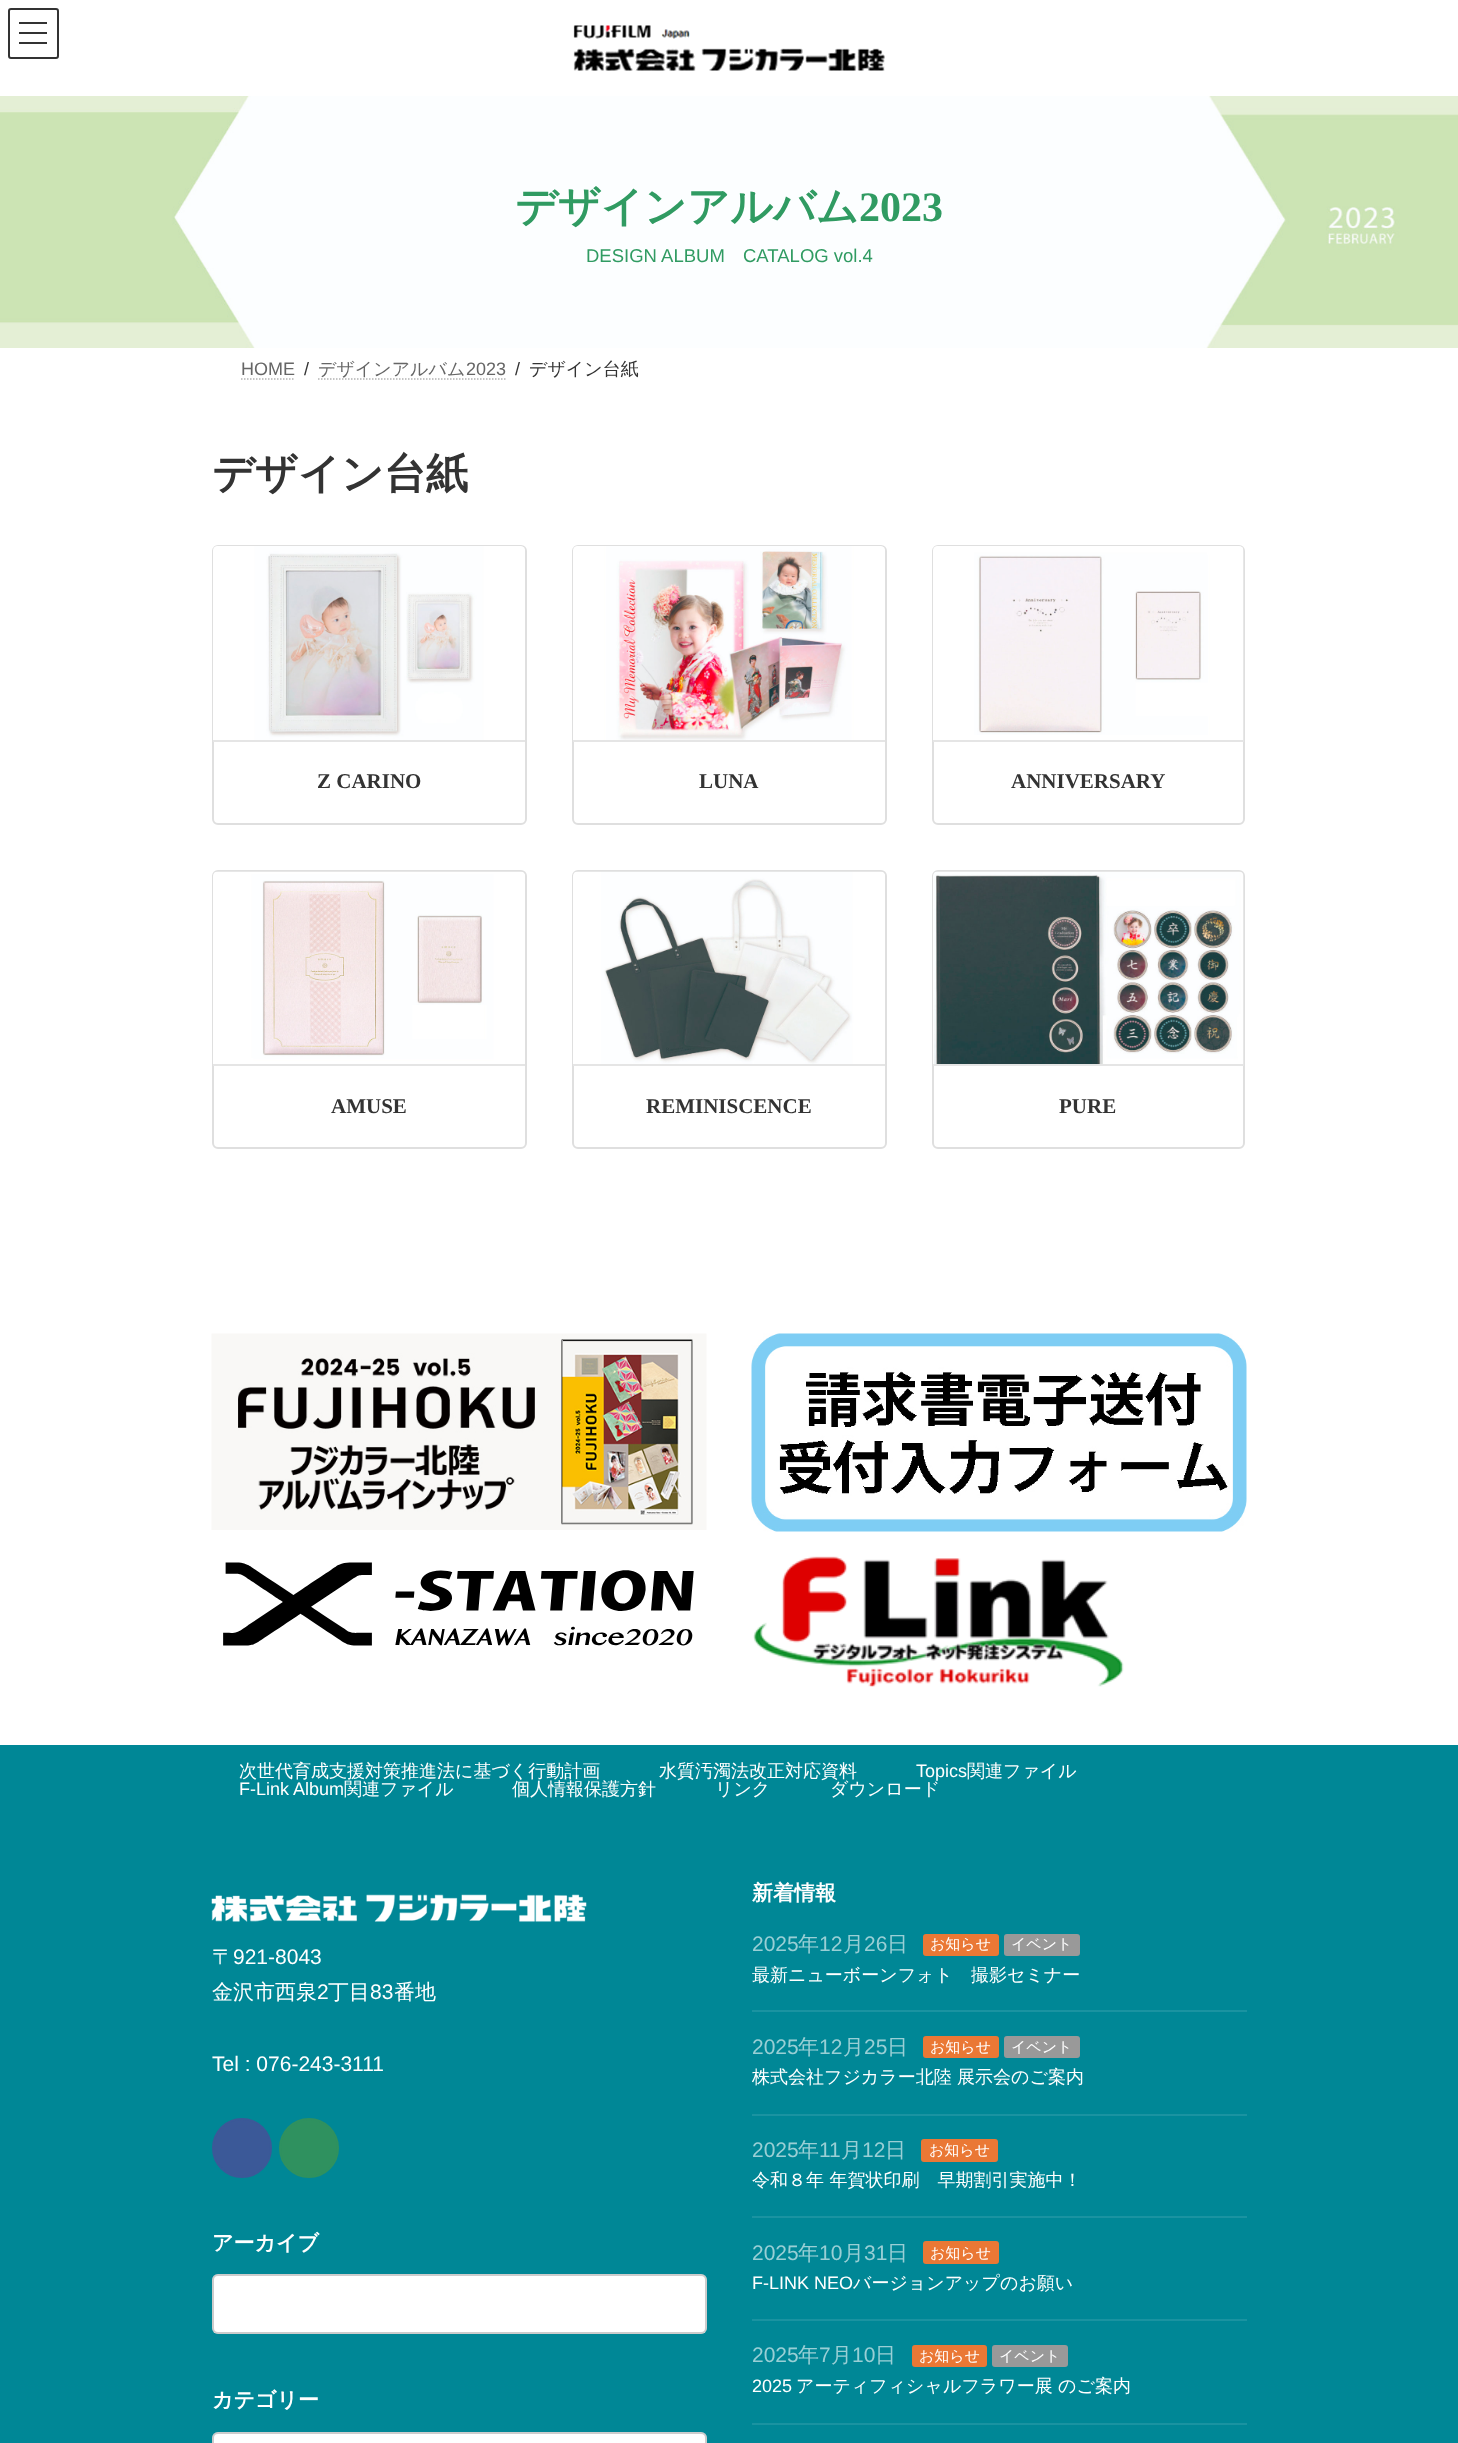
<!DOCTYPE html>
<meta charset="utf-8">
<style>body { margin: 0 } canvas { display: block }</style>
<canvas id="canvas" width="1458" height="2443"></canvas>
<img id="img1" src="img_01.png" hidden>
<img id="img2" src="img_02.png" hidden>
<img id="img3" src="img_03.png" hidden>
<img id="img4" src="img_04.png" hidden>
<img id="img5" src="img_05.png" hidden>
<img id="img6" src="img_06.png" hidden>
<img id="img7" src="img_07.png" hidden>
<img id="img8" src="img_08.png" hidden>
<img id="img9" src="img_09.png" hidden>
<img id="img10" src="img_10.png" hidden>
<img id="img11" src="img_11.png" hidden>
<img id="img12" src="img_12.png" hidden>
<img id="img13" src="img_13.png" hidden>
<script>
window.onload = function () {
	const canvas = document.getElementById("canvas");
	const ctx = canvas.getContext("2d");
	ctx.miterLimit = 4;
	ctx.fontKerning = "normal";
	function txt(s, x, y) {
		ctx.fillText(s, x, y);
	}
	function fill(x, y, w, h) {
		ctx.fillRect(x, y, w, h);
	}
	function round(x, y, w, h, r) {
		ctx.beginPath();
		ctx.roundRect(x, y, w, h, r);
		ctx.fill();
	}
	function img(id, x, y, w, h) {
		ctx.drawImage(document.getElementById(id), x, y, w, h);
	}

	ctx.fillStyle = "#FFFFFF";
	fill(0, 0, 1458, 2443);
	ctx.fillStyle = "#333333";
	fill(19, 22, 28, 2);
	fill(19, 32, 28, 2);
	fill(19, 42, 28, 2);
	ctx.beginPath();
	ctx.roundRect(9, 9, 49, 49, 2);
	ctx.strokeStyle = "#333333";
	ctx.lineWidth = 2;
	ctx.stroke();
	img("img1", 573, 25, 312, 46);
	img("img2", 0, 96, 1458, 252);
	ctx.beginPath();
	ctx.moveTo(241, 379);
	ctx.lineTo(295, 379);
	ctx.strokeStyle = "#B3B3B3";
	ctx.lineWidth = 1.5;
	ctx.setLineDash([1.5, 1.5]);
	ctx.stroke();
	ctx.beginPath();
	ctx.moveTo(318, 379);
	ctx.lineTo(505.5, 379);
	ctx.stroke();
	ctx.beginPath();
	ctx.roundRect(213, 546, 313, 278, 5);
	ctx.strokeStyle = "#DFDFDF";
	ctx.lineWidth = 2;
	ctx.setLineDash([]);
	ctx.stroke();
	img("img3", 213, 546, 312, 194);
	ctx.fillStyle = "#E5E5E5";
	fill(213, 740, 312, 2);
	ctx.beginPath();
	ctx.roundRect(573, 546, 313, 278, 5);
	ctx.stroke();
	img("img4", 573, 546, 312, 194);
	fill(573, 740, 312, 2);
	ctx.beginPath();
	ctx.roundRect(933, 546, 311, 278, 5);
	ctx.stroke();
	img("img5", 933, 546, 311, 194);
	fill(933, 740, 311, 2);
	ctx.beginPath();
	ctx.roundRect(213, 871, 313, 277, 5);
	ctx.stroke();
	img("img6", 213, 871, 312, 193);
	fill(213, 1064, 312, 2);
	ctx.beginPath();
	ctx.roundRect(573, 871, 313, 277, 5);
	ctx.stroke();
	img("img7", 573, 871, 312, 193);
	fill(573, 1064, 312, 2);
	ctx.beginPath();
	ctx.roundRect(933, 871, 311, 277, 5);
	ctx.stroke();
	img("img8", 933, 871, 311, 193);
	fill(933, 1064, 311, 2);
	img("img9", 211, 1333, 496, 197);
	img("img10", 751, 1333, 496, 199);
	img("img11", 223, 1562, 471, 84);
	img("img12", 753, 1556, 371, 131);
	ctx.fillStyle = "#008796";
	fill(0, 1745, 1458, 698);
	img("img13", 211, 1894, 376, 28);
	ctx.fillStyle = "#3B5998";
	ctx.beginPath();
	ctx.arc(242, 2148, 29, 0, Math.PI * 2);
	ctx.fill();
	ctx.strokeStyle = "#3B5998";
	ctx.stroke();
	ctx.fillStyle = "#2F915F";
	ctx.beginPath();
	ctx.arc(309, 2148, 29, 0, Math.PI * 2);
	ctx.fill();
	ctx.strokeStyle = "#2F915F";
	ctx.stroke();
	ctx.fillStyle = "#FFFFFF";
	round(212, 2274, 495, 60, 6);
	ctx.beginPath();
	ctx.roundRect(213, 2275, 493, 58, 5);
	ctx.strokeStyle = "rgba(0, 0, 0, 0.2)";
	ctx.stroke();
	round(212, 2432, 495, 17, 6);
	ctx.beginPath();
	ctx.roundRect(213, 2433, 493, 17, 5);
	ctx.stroke();
	ctx.fillStyle = "#1A93A1";
	fill(752, 2010, 495, 2);
	ctx.fillStyle = "#EA7835";
	round(923, 1934, 76, 22, 3);
	ctx.fillStyle = "#999999";
	round(1004, 1934, 76, 22, 3);
	ctx.fillStyle = "#1A93A1";
	fill(752, 2114, 495, 2);
	ctx.fillStyle = "#EA7835";
	round(923, 2036, 76, 22, 3);
	ctx.fillStyle = "#999999";
	round(1004, 2036, 76, 22, 3);
	ctx.fillStyle = "#1A93A1";
	fill(752, 2216, 495, 2);
	ctx.fillStyle = "#EA7835";
	round(921, 2139, 77, 23, 3);
	ctx.fillStyle = "#1A93A1";
	fill(752, 2319, 495, 2);
	ctx.fillStyle = "#EA7835";
	round(923, 2241, 76, 23, 3);
	ctx.fillStyle = "#1A93A1";
	fill(752, 2423, 495, 2);
	ctx.fillStyle = "#EA7835";
	round(912, 2345, 75, 22, 3);
	ctx.fillStyle = "#999999";
	round(992, 2345, 76, 22, 3);
	ctx.font = "bold 42px WenQuanYi Zen Hei";
	ctx.fillStyle = "#309B62";
	txt("デザインアルバム", 515, 221);
	ctx.font = "bold 42px Liberation Serif";
	txt("2023", 859, 221);
	ctx.font = "18.5px Liberation Sans";
	txt("DESIGN ALBUM", 586, 262);
	txt("CATALOG vol.4", 743, 262);
	ctx.font = "18px Liberation Sans";
	ctx.fillStyle = "#666666";
	txt("HOME", 241, 375);
	ctx.fillStyle = "#333333";
	txt("/", 304, 375);
	ctx.font = "500 18px WenQuanYi Zen Hei";
	ctx.fillStyle = "#666666";
	txt("デザインアルバム", 318, 375);
	ctx.font = "18px Liberation Sans";
	txt("2023", 466, 375);
	ctx.fillStyle = "#333333";
	txt("/", 515, 375);
	ctx.font = "500 18px WenQuanYi Zen Hei";
	txt("デザイン台紙", 529, 375);
	ctx.font = "bold 42px WenQuanYi Zen Hei";
	txt("デザイン台紙", 212, 488);
	ctx.font = "bold 21px Liberation Serif";
	txt("Z CARINO", 317, 788);
	txt("LUNA", 699, 788);
	txt("ANNIVERSARY", 1011, 788);
	txt("AMUSE", 331, 1113);
	txt("REMINISCENCE", 646, 1113);
	txt("PURE", 1059, 1113);
	ctx.font = "500 18px WenQuanYi Zen Hei";
	ctx.fillStyle = "#FFFFFF";
	txt("次世代育成支援対策推進法に基づく行動計画", 239, 1777);
	txt("水質汚濁法改正対応資料", 659, 1777);
	ctx.font = "18px Liberation Sans";
	txt("Topics", 916, 1777);
	ctx.font = "500 18px WenQuanYi Zen Hei";
	txt("関連ファイル", 967, 1777);
	ctx.font = "18px Liberation Sans";
	txt("F-Link Album", 239, 1795);
	ctx.font = "500 18px WenQuanYi Zen Hei";
	txt("関連ファイル", 344, 1795);
	txt("個人情報保護方針", 512, 1795);
	txt("リンク", 715, 1795);
	txt("ダウンロード", 830, 1795);
	ctx.font = "500 21px WenQuanYi Zen Hei";
	txt("〒", 212, 1964);
	ctx.font = "21px Liberation Sans";
	txt("921-8043", 233, 1964);
	ctx.font = "500 21px WenQuanYi Zen Hei";
	txt("金沢市西泉", 212, 1999);
	ctx.font = "21px Liberation Sans";
	txt("2", 317, 1999);
	ctx.font = "500 21px WenQuanYi Zen Hei";
	txt("丁目", 328, 1999);
	ctx.font = "21px Liberation Sans";
	txt("83", 370, 1999);
	ctx.font = "500 21px WenQuanYi Zen Hei";
	txt("番地", 394, 1999);
	ctx.font = "21px Liberation Sans";
	txt("Tel : 076-243-3111", 212, 2071);
	ctx.font = "bold 21px WenQuanYi Zen Hei";
	txt("アーカイブ", 212, 2250);
	txt("カテゴリー", 212, 2407);
	txt("新着情報", 752, 1900);
	ctx.font = "21px Liberation Sans";
	ctx.fillStyle = "#99CFD5";
	txt("2025", 752, 1951);
	ctx.font = "500 21px WenQuanYi Zen Hei";
	txt("年", 798, 1951);
	ctx.font = "21px Liberation Sans";
	txt("12", 819, 1951);
	ctx.font = "500 21px WenQuanYi Zen Hei";
	txt("月", 843, 1951);
	ctx.font = "21px Liberation Sans";
	txt("26", 864, 1951);
	ctx.font = "500 21px WenQuanYi Zen Hei";
	txt("日", 887, 1951);
	ctx.font = "500 15px WenQuanYi Zen Hei";
	ctx.fillStyle = "#FFFFFF";
	txt("お知らせ", 930, 1949);
	txt("イベント", 1011, 1949);
	ctx.font = "500 18px WenQuanYi Zen Hei";
	txt("最新ニューボーンフォト　撮影セミナー", 752, 1981);
	ctx.font = "21px Liberation Sans";
	ctx.fillStyle = "#99CFD5";
	txt("2025", 752, 2054);
	ctx.font = "500 21px WenQuanYi Zen Hei";
	txt("年", 798, 2054);
	ctx.font = "21px Liberation Sans";
	txt("12", 819, 2054);
	ctx.font = "500 21px WenQuanYi Zen Hei";
	txt("月", 843, 2054);
	ctx.font = "21px Liberation Sans";
	txt("25", 864, 2054);
	ctx.font = "500 21px WenQuanYi Zen Hei";
	txt("日", 887, 2054);
	ctx.font = "500 15px WenQuanYi Zen Hei";
	ctx.fillStyle = "#FFFFFF";
	txt("お知らせ", 930, 2052);
	txt("イベント", 1011, 2052);
	ctx.font = "500 18px WenQuanYi Zen Hei";
	txt("株式会社フジカラー北陸 展示会のご案内", 752, 2083);
	ctx.font = "21px Liberation Sans";
	ctx.fillStyle = "#99CFD5";
	txt("2025", 752, 2157);
	ctx.font = "500 21px WenQuanYi Zen Hei";
	txt("年", 798, 2157);
	ctx.font = "21px Liberation Sans";
	txt("11", 819, 2157);
	ctx.font = "500 21px WenQuanYi Zen Hei";
	txt("月", 841, 2157);
	ctx.font = "21px Liberation Sans";
	txt("12", 862, 2157);
	ctx.font = "500 21px WenQuanYi Zen Hei";
	txt("日", 885, 2157);
	ctx.font = "500 15px WenQuanYi Zen Hei";
	ctx.fillStyle = "#FFFFFF";
	txt("お知らせ", 929, 2155);
	ctx.font = "500 18px WenQuanYi Zen Hei";
	txt("令和８年 年賀状印刷　早期割引実施中！", 752, 2186);
	ctx.font = "21px Liberation Sans";
	ctx.fillStyle = "#99CFD5";
	txt("2025", 752, 2260);
	ctx.font = "500 21px WenQuanYi Zen Hei";
	txt("年", 798, 2260);
	ctx.font = "21px Liberation Sans";
	txt("10", 819, 2260);
	ctx.font = "500 21px WenQuanYi Zen Hei";
	txt("月", 843, 2260);
	ctx.font = "21px Liberation Sans";
	txt("31", 864, 2260);
	ctx.font = "500 21px WenQuanYi Zen Hei";
	txt("日", 887, 2260);
	ctx.font = "500 15px WenQuanYi Zen Hei";
	ctx.fillStyle = "#FFFFFF";
	txt("お知らせ", 930, 2258);
	ctx.font = "18px Liberation Sans";
	txt("F-LINK NEO", 752, 2289);
	ctx.font = "500 18px WenQuanYi Zen Hei";
	txt("バージョンアップのお願い", 853, 2289);
	ctx.font = "21px Liberation Sans";
	ctx.fillStyle = "#99CFD5";
	txt("2025", 752, 2362);
	ctx.font = "500 21px WenQuanYi Zen Hei";
	txt("年", 798, 2362);
	ctx.font = "21px Liberation Sans";
	txt("7", 819, 2362);
	ctx.font = "500 21px WenQuanYi Zen Hei";
	txt("月", 831, 2362);
	ctx.font = "21px Liberation Sans";
	txt("10", 852, 2362);
	ctx.font = "500 21px WenQuanYi Zen Hei";
	txt("日", 875, 2362);
	ctx.font = "500 15px WenQuanYi Zen Hei";
	ctx.fillStyle = "#FFFFFF";
	txt("お知らせ", 919, 2361);
	txt("イベント", 999, 2361);
	ctx.font = "18px Liberation Sans";
	txt("2025", 752, 2392);
	ctx.font = "500 18px WenQuanYi Zen Hei";
	txt("アーティフィシャルフラワー展 のご案内", 796, 2392);
};
</script>
